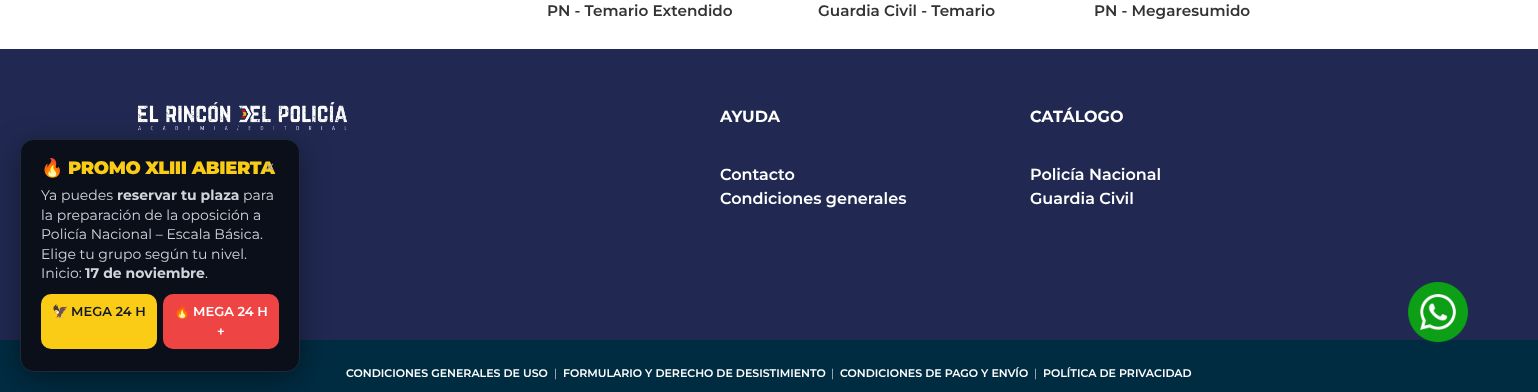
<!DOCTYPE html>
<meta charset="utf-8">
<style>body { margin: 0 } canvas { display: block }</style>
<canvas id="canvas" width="1538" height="392"></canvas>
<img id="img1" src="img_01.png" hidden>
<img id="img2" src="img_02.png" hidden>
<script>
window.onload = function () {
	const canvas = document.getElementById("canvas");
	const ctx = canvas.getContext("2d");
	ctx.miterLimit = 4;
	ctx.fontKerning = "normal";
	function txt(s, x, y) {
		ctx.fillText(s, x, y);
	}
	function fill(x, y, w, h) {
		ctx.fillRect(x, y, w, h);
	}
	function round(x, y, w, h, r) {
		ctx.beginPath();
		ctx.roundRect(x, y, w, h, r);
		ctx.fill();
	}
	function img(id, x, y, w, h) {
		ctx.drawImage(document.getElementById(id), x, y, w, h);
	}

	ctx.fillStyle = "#FFFFFF";
	fill(0, 0, 1538, 392);
	ctx.fillStyle = "#212952";
	fill(0, 49, 1538, 291);
	img("img1", 137, 102, 210, 29);
	ctx.fillStyle = "#002C42";
	fill(0, 340, 1538, 52);
	ctx.fillStyle = "rgba(0, 0, 0, 0.4)";
	ctx.filter = "blur(15px)";
	ctx.beginPath();
	ctx.roundRect(20, 147, 280, 233, 14);
	ctx.fill();
	ctx.filter = "none";
	ctx.fillStyle = "#0B0F19";
	ctx.beginPath();
	ctx.roundRect(20.5, 139.5, 279, 232, 13.5);
	ctx.fill();
	ctx.strokeStyle = "#1F2937";
	ctx.stroke();
	ctx.fillStyle = "#FACC15";
	round(41, 294, 116, 55, 10);
	ctx.fillStyle = "#EF4444";
	round(163, 294, 116, 55, 10);
	img("img2", 1408, 282, 60, 60);
	ctx.font = "600 15.25px Montserrat";
	ctx.fillStyle = "#333333";
	txt("PN - Temario Extendido", 547, 16);
	txt("Guardia Civil - Temario", 818, 16);
	txt("PN - Megaresumido", 1094, 16);
	ctx.letterSpacing = "-0.4px";
	ctx.font = "bold 18px Noto Color Emoji";
	ctx.fillStyle = "#FACC15";
	txt("🔥", 41, 174);
	ctx.font = "900 18px Montserrat";
	txt("PROMO XLIII ABIERTA", 68, 174);
	ctx.letterSpacing = "0px";
	ctx.font = "20px Montserrat";
	ctx.fillStyle = "#9CA3AF";
	txt("×", 264, 174);
	ctx.font = "14px Montserrat";
	ctx.fillStyle = "#D1D5DB";
	txt("Ya puedes", 41, 200);
	ctx.font = "bold 14px Montserrat";
	txt("reservar tu plaza", 117, 200);
	ctx.font = "14px Montserrat";
	txt("para", 243, 200);
	txt("la preparación de la oposición a", 41, 220);
	txt("Policía Nacional – Escala Básica.", 41, 239);
	txt("Elige tu grupo según tu nivel.", 41, 259);
	txt("Inicio:", 41, 278);
	ctx.font = "bold 14px Montserrat";
	txt("17 de noviembre", 85, 278);
	ctx.font = "14px Montserrat";
	txt(".", 205, 278);
	ctx.font = "bold 13px Noto Color Emoji";
	ctx.fillStyle = "#111827";
	txt("🦅", 52, 316);
	ctx.font = "600 13px Montserrat";
	txt("MEGA 24 H", 71, 316);
	ctx.font = "bold 13px Noto Color Emoji";
	ctx.fillStyle = "#FFFFFF";
	txt("🔥", 174, 316);
	ctx.font = "600 13px Montserrat";
	txt("MEGA 24 H", 193, 316);
	txt("+", 217, 336);
	ctx.font = "bold 16px Montserrat";
	txt("AYUDA", 720, 122);
	ctx.font = "600 16px Montserrat";
	txt("Contacto", 720, 180);
	txt("Condiciones generales", 720, 204);
	ctx.font = "bold 16px Montserrat";
	txt("CATÁLOGO", 1030, 122);
	ctx.font = "600 16px Montserrat";
	txt("Policía Nacional", 1030, 180);
	txt("Guardia Civil", 1030, 204);
	ctx.font = "600 11px Montserrat";
	txt("CONDICIONES GENERALES DE USO", 346, 377);
	ctx.font = "300 11px Montserrat";
	txt("|", 554, 377);
	ctx.font = "600 11px Montserrat";
	txt("FORMULARIO Y DERECHO DE DESISTIMIENTO", 563, 377);
	ctx.font = "300 11px Montserrat";
	txt("|", 831, 377);
	ctx.font = "600 11px Montserrat";
	txt("CONDICIONES DE PAGO Y ENVÍO", 840, 377);
	ctx.font = "300 11px Montserrat";
	txt("|", 1034, 377);
	ctx.font = "600 11px Montserrat";
	txt("POLÍTICA DE PRIVACIDAD", 1043, 377);
};
</script>
